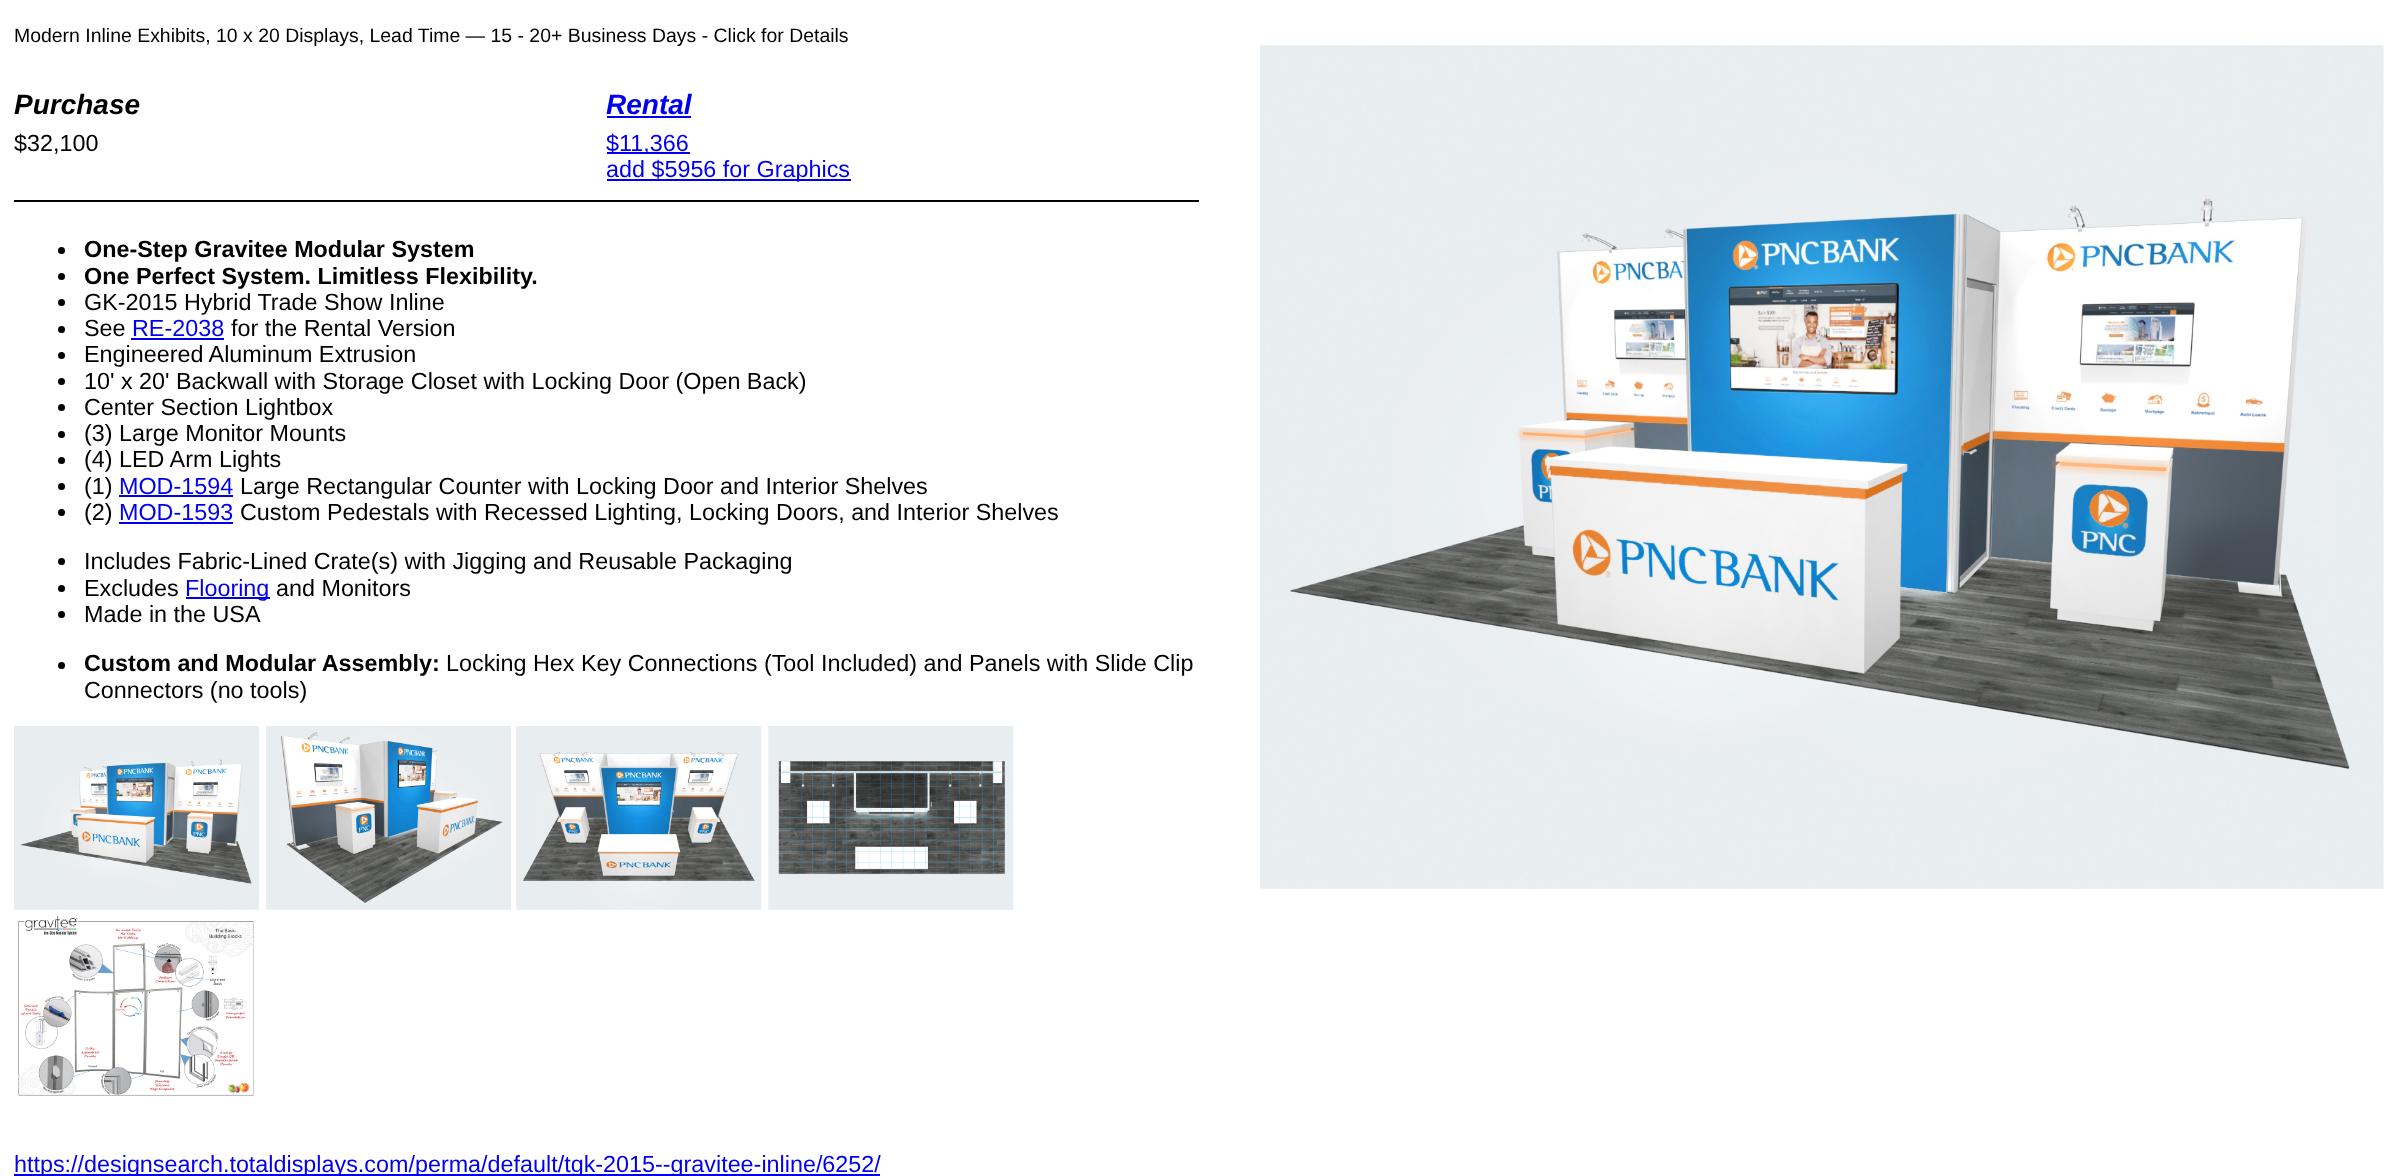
<!DOCTYPE html>
<meta charset="utf-8">
<style>body { margin: 0 } canvas { display: block }</style>
<canvas id="canvas" width="2397" height="1176"></canvas>
<img id="img1" src="img_01.png" hidden>
<img id="img2" src="img_02.png" hidden>
<img id="img3" src="img_03.png" hidden>
<img id="img4" src="img_04.png" hidden>
<img id="img5" src="img_05.png" hidden>
<img id="img6" src="img_06.png" hidden>
<script>
window.onload = function () {
	const canvas = document.getElementById("canvas");
	const ctx = canvas.getContext("2d");
	ctx.miterLimit = 4;
	ctx.fontKerning = "normal";
	function txt(s, x, y) {
		ctx.fillText(s, x, y);
	}
	function fill(x, y, w, h) {
		ctx.fillRect(x, y, w, h);
	}
	function img(id, x, y, w, h) {
		ctx.drawImage(document.getElementById(id), x, y, w, h);
	}

	ctx.fillStyle = "#FFFFFF";
	fill(0, 0, 2397, 1176);
	ctx.fillStyle = "#000000";
	fill(14, 200, 1185, 2);
	ctx.fillStyle = "#0000EE";
	fill(607, 116, 84, 2);
	fill(607, 152, 83, 2);
	fill(607, 179, 244, 2);
	img("img1", 1260, 45, 1124, 844);
	ctx.fillStyle = "#000000";
	ctx.beginPath();
	ctx.arc(61.5, 250.5, 3.5, 0, Math.PI * 2);
	ctx.fill();
	ctx.beginPath();
	ctx.arc(61.5, 276.5, 3.5, 0, Math.PI * 2);
	ctx.fill();
	ctx.beginPath();
	ctx.arc(61.5, 302.5, 3.5, 0, Math.PI * 2);
	ctx.fill();
	ctx.beginPath();
	ctx.arc(61.5, 329.5, 3.5, 0, Math.PI * 2);
	ctx.fill();
	ctx.fillStyle = "#0000EE";
	fill(131, 338, 93, 2);
	ctx.fillStyle = "#000000";
	ctx.beginPath();
	ctx.arc(61.5, 355.5, 3.5, 0, Math.PI * 2);
	ctx.fill();
	ctx.beginPath();
	ctx.arc(61.5, 381.5, 3.5, 0, Math.PI * 2);
	ctx.fill();
	ctx.beginPath();
	ctx.arc(61.5, 407.5, 3.5, 0, Math.PI * 2);
	ctx.fill();
	ctx.beginPath();
	ctx.arc(61.5, 434.5, 3.5, 0, Math.PI * 2);
	ctx.fill();
	ctx.beginPath();
	ctx.arc(61.5, 460.5, 3.5, 0, Math.PI * 2);
	ctx.fill();
	ctx.beginPath();
	ctx.arc(61.5, 486.5, 3.5, 0, Math.PI * 2);
	ctx.fill();
	ctx.fillStyle = "#0000EE";
	fill(119, 495, 114, 2);
	ctx.fillStyle = "#000000";
	ctx.beginPath();
	ctx.arc(61.5, 512.5, 3.5, 0, Math.PI * 2);
	ctx.fill();
	ctx.fillStyle = "#0000EE";
	fill(119, 522, 114, 2);
	ctx.fillStyle = "#000000";
	ctx.beginPath();
	ctx.arc(61.5, 561.5, 3.5, 0, Math.PI * 2);
	ctx.fill();
	ctx.beginPath();
	ctx.arc(61.5, 588.5, 3.5, 0, Math.PI * 2);
	ctx.fill();
	ctx.fillStyle = "#0000EE";
	fill(186, 597, 84, 2);
	ctx.fillStyle = "#000000";
	ctx.beginPath();
	ctx.arc(61.5, 614.5, 3.5, 0, Math.PI * 2);
	ctx.fill();
	ctx.beginPath();
	ctx.arc(61.5, 665.5, 3.5, 0, Math.PI * 2);
	ctx.fill();
	img("img2", 14, 726, 245, 184);
	img("img3", 266, 726, 245, 184);
	img("img4", 516, 726, 246, 184);
	img("img5", 768, 726, 246, 184);
	img("img6", 18, 916, 236, 180);
	ctx.fillStyle = "#0000EE";
	fill(14, 1174, 866, 2);
	ctx.font = "19.45px Liberation Sans";
	ctx.fillStyle = "#000000";
	txt("Modern Inline Exhibits, 10 x 20 Displays, Lead Time — 15 - 20+ Business Days - Click for Details", 14, 42);
	ctx.font = "italic bold 28px Liberation Sans";
	txt("Purchase", 14, 114);
	ctx.font = "23.35px Liberation Sans";
	txt("$32,100", 14, 151);
	ctx.font = "italic bold 28px Liberation Sans";
	ctx.fillStyle = "#0000EE";
	txt("Rental", 606, 114);
	ctx.font = "23.35px Liberation Sans";
	txt("$11,366", 606, 151);
	txt("add $5956 for Graphics", 606, 177);
	ctx.font = "bold 23.35px Liberation Sans";
	ctx.fillStyle = "#000000";
	txt("One-Step Gravitee Modular System", 84, 257);
	txt("One Perfect System. Limitless Flexibility.", 84, 284);
	ctx.font = "23.35px Liberation Sans";
	txt("GK-2015 Hybrid Trade Show Inline", 84, 310);
	txt("See", 84, 336);
	ctx.fillStyle = "#0000EE";
	txt("RE-2038", 132, 336);
	ctx.fillStyle = "#000000";
	txt("for the Rental Version", 231, 336);
	txt("Engineered Aluminum Extrusion", 84, 362);
	txt("10' x 20' Backwall with Storage Closet with Locking Door (Open Back)", 84, 389);
	txt("Center Section Lightbox", 84, 415);
	txt("(3) Large Monitor Mounts", 84, 441);
	txt("(4) LED Arm Lights", 84, 467);
	txt("(1)", 84, 494);
	ctx.fillStyle = "#0000EE";
	txt("MOD-1594", 119, 494);
	ctx.fillStyle = "#000000";
	txt("Large Rectangular Counter with Locking Door and Interior Shelves", 240, 494);
	txt("(2)", 84, 520);
	ctx.fillStyle = "#0000EE";
	txt("MOD-1593", 119, 520);
	ctx.fillStyle = "#000000";
	txt("Custom Pedestals with Recessed Lighting, Locking Doors, and Interior Shelves", 240, 520);
	txt("Includes Fabric-Lined Crate(s) with Jigging and Reusable Packaging", 84, 569);
	txt("Excludes", 84, 596);
	ctx.fillStyle = "#0000EE";
	txt("Flooring", 185, 596);
	ctx.fillStyle = "#000000";
	txt("and Monitors", 276, 596);
	txt("Made in the USA", 84, 622);
	ctx.font = "bold 23.35px Liberation Sans";
	txt("Custom and Modular Assembly:", 84, 671);
	ctx.font = "23.35px Liberation Sans";
	txt("Locking Hex Key Connections (Tool Included) and Panels with Slide Clip", 446, 671);
	txt("Connectors (no tools)", 84, 698);
	ctx.fillStyle = "#0000EE";
	txt("https://designsearch.totaldisplays.com/perma/default/tgk-2015--gravitee-inline/6252/", 14, 1172);
};
</script>
